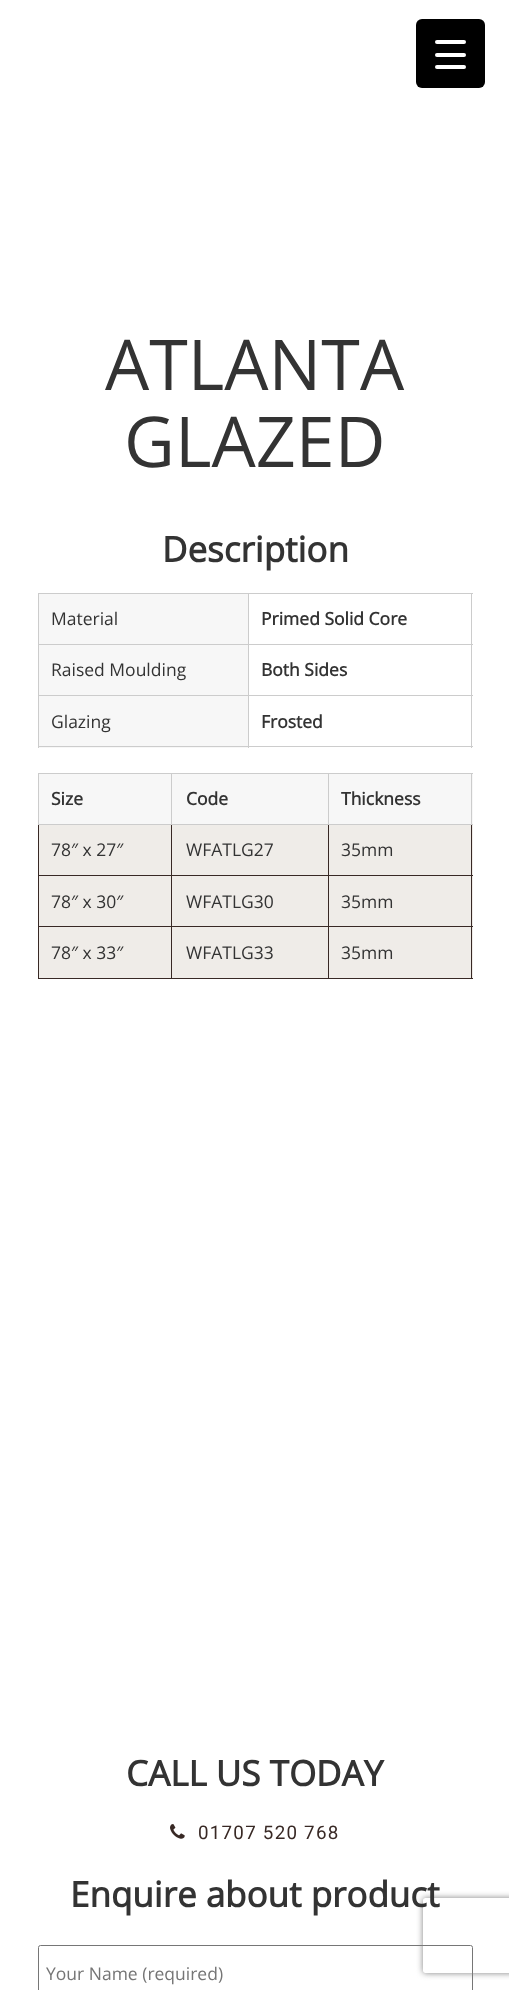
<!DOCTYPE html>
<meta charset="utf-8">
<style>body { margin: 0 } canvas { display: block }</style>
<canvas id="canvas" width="509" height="1990"></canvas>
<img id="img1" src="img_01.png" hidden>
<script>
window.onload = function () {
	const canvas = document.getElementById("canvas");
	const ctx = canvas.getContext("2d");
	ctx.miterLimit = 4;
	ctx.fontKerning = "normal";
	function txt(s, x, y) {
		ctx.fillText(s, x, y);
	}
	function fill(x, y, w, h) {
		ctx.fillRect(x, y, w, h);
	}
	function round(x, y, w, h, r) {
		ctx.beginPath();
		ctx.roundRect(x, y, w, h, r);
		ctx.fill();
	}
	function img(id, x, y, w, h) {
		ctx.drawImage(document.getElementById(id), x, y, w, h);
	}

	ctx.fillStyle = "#FFFFFF";
	fill(0, 0, 509, 1990);
	ctx.fillStyle = "#000000";
	round(416, 19, 69, 69, 6);
	ctx.fillStyle = "#FFFFFF";
	round(435, 53, 31, 4, 2);
	round(435, 40, 31, 4, 2);
	round(435, 65, 31, 4, 2);
	ctx.fillStyle = "#CCCCCC";
	fill(38, 593, 435, 1);
	fill(471, 593, 1, 155);
	ctx.fillStyle = "#F7F7F7";
	fill(39, 696, 209, 52);
	ctx.fillStyle = "#CCCCCC";
	fill(38, 746, 435, 1);
	fill(38, 593, 1, 155);
	ctx.fillStyle = "#F7F7F7";
	fill(39, 594, 209, 50);
	ctx.fillStyle = "#CCCCCC";
	fill(248, 695, 1, 53);
	fill(248, 695, 225, 1);
	fill(248, 644, 1, 52);
	fill(248, 644, 225, 1);
	fill(248, 593, 1, 52);
	fill(38, 644, 211, 1);
	ctx.fillStyle = "#F7F7F7";
	fill(39, 645, 209, 50);
	ctx.fillStyle = "#CCCCCC";
	fill(38, 695, 211, 1);
	ctx.fillStyle = "#EFECE8";
	fill(329, 825, 144, 50);
	fill(329, 876, 144, 102);
	ctx.fillStyle = "#382925";
	fill(471, 825, 1, 154);
	fill(38, 978, 435, 1);
	fill(38, 825, 1, 154);
	ctx.fillStyle = "#F7F7F7";
	fill(39, 774, 289, 50);
	ctx.fillStyle = "#CCCCCC";
	fill(328, 773, 145, 1);
	ctx.fillStyle = "#F7F7F7";
	fill(329, 774, 144, 50);
	ctx.fillStyle = "#CCCCCC";
	fill(471, 773, 1, 52);
	ctx.fillStyle = "#382925";
	fill(328, 926, 1, 53);
	fill(328, 926, 145, 1);
	fill(328, 875, 1, 53);
	fill(328, 875, 145, 1);
	fill(328, 824, 1, 52);
	ctx.fillStyle = "#CCCCCC";
	fill(328, 824, 145, 1);
	fill(328, 773, 1, 52);
	fill(171, 773, 158, 1);
	ctx.fillStyle = "#EFECE8";
	fill(39, 825, 289, 50);
	fill(39, 876, 289, 52);
	fill(39, 928, 289, 50);
	ctx.fillStyle = "#382925";
	fill(171, 926, 1, 53);
	fill(171, 926, 158, 1);
	fill(171, 875, 1, 53);
	fill(171, 875, 158, 1);
	fill(171, 824, 1, 52);
	ctx.fillStyle = "#CCCCCC";
	fill(171, 824, 158, 1);
	fill(171, 773, 1, 52);
	fill(38, 773, 135, 1);
	fill(38, 824, 135, 1);
	fill(38, 773, 1, 52);
	ctx.fillStyle = "#382925";
	fill(38, 875, 135, 1);
	fill(38, 926, 135, 1);
	img("img1", 170, 1824, 15, 15);
	ctx.beginPath();
	ctx.roundRect(38.5, 1945.5, 434, 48, 2);
	ctx.strokeStyle = "#767676";
	ctx.stroke();
	ctx.save();
	ctx.beginPath();
	ctx.moveTo(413, 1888);
	ctx.lineTo(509, 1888);
	ctx.lineTo(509, 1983);
	ctx.lineTo(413, 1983);
	ctx.closePath();
	ctx.moveTo(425.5, 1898);
	ctx.lineTo(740.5, 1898);
	ctx.bezierCurveTo(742, 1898, 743, 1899, 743, 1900.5);
	ctx.lineTo(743, 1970.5);
	ctx.bezierCurveTo(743, 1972, 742, 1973, 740.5, 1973);
	ctx.lineTo(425.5, 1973);
	ctx.bezierCurveTo(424, 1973, 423, 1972, 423, 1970.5);
	ctx.lineTo(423, 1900.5);
	ctx.bezierCurveTo(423, 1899, 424, 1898, 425.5, 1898);
	ctx.closePath();
	ctx.clip("evenodd");
	ctx.fillStyle = "#808080";
	ctx.filter = "blur(3px)";
	ctx.beginPath();
	ctx.roundRect(423, 1898, 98, 75, 2.5);
	ctx.fill();
	ctx.filter = "none";
	ctx.restore();
	ctx.font = "70px Open Sans";
	ctx.fillStyle = "#333333";
	txt("ATLANTA", 105, 390);
	txt("GLAZED", 124, 467);
	ctx.font = "bold 35px Open Sans";
	txt("Description", 162, 562);
	ctx.font = "17.5px Open Sans";
	txt("Material", 51, 625);
	ctx.font = "bold 17.5px Open Sans";
	txt("Primed Solid Core", 261, 625);
	ctx.font = "17.5px Open Sans";
	txt("Raised Moulding", 51, 676);
	ctx.font = "bold 17.5px Open Sans";
	txt("Both Sides", 261, 676);
	ctx.font = "17.5px Open Sans";
	txt("Glazing", 51, 728);
	ctx.font = "bold 17.5px Open Sans";
	txt("Frosted", 261, 728);
	txt("Size", 51, 805);
	txt("Code", 186, 805);
	txt("Thickness", 341, 805);
	ctx.font = "17.5px Open Sans";
	txt("78″ x 27″", 51, 856);
	txt("WFATLG27", 186, 856);
	txt("35mm", 341, 856);
	txt("78″ x 30″", 51, 908);
	txt("WFATLG30", 186, 908);
	txt("35mm", 341, 908);
	txt("78″ x 33″", 51, 959);
	txt("WFATLG33", 186, 959);
	txt("35mm", 341, 959);
	ctx.font = "bold 35px Open Sans";
	txt("CALL US TODAY", 126, 1786);
	ctx.letterSpacing = "1.25px";
	ctx.font = "18.75px Roboto";
	ctx.fillStyle = "#382925";
	txt("01707 520 768", 198, 1839);
	ctx.letterSpacing = "0px";
	ctx.font = "bold 35px Open Sans";
	ctx.fillStyle = "#333333";
	txt("Enquire about product", 70, 1907);
	ctx.font = "17.5px Open Sans";
	ctx.fillStyle = "#757575";
	txt("Your Name (required)", 46, 1980);
};
</script>
